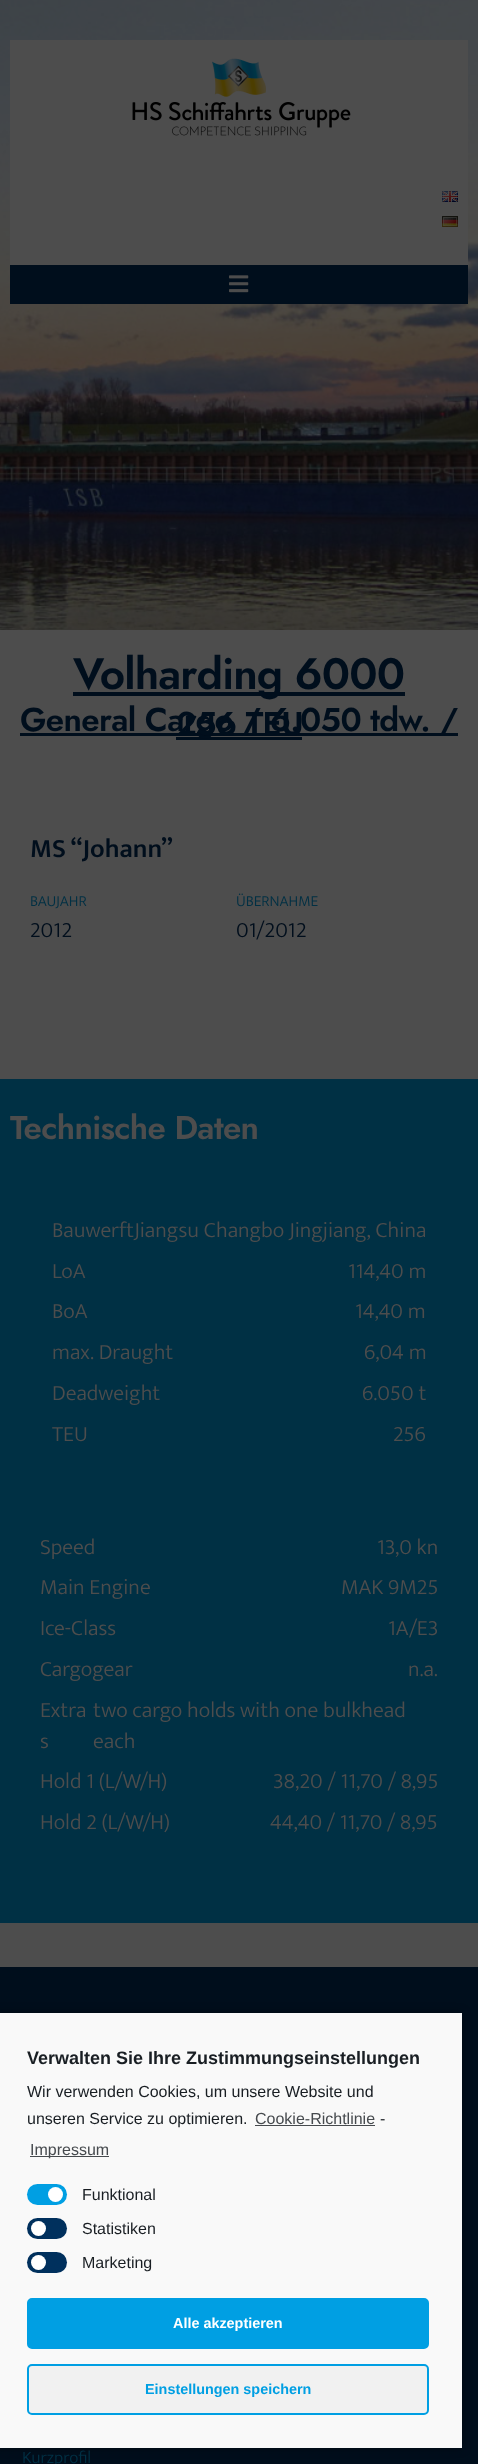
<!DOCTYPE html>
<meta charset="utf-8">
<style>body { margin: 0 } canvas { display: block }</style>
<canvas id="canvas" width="478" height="2464"></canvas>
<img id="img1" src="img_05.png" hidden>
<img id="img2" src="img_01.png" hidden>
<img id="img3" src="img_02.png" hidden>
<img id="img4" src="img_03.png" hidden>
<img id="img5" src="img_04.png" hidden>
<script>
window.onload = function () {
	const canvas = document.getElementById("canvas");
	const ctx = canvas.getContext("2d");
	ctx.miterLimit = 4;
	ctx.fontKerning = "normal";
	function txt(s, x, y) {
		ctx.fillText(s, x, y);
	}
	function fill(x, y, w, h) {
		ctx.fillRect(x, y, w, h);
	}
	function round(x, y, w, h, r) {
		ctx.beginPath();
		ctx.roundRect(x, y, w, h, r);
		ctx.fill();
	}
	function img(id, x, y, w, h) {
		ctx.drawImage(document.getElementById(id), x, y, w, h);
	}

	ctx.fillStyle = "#4D4D4D";
	fill(0, 0, 478, 2464);
	img("img1", 0, 0, 478, 630);
	fill(10, 40, 458, 225);
	img("img2", 132, 58, 219, 78);
	img("img3", 442, 191, 16, 11);
	img("img4", 442, 216, 16, 11);
	ctx.fillStyle = "#000E1C";
	fill(10, 265, 458, 39);
	img("img5", 229, 275, 20, 18);
	fill(73, 692, 332, 4);
	fill(20, 733, 438, 3);
	fill(176, 737, 126, 3);
	ctx.fillStyle = "#003044";
	fill(0, 1079, 478, 844);
	ctx.fillStyle = "#000E1C";
	fill(0, 1967, 478, 497);
	ctx.fillStyle = "rgba(0, 0, 0, 0.4)";
	ctx.filter = "blur(5px)";
	ctx.beginPath();
	ctx.rect(-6, 2013, 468, 435);
	ctx.fill();
	ctx.filter = "none";
	ctx.fillStyle = "#F9F9F9";
	fill(0, 2013, 462, 435);
	ctx.fillStyle = "#464A4E";
	fill(255, 2125, 120, 1);
	fill(30, 2156, 79, 1);
	ctx.fillStyle = "#009FE3";
	round(27, 2184, 40, 21, 10.5);
	ctx.fillStyle = "#FFFFFF";
	ctx.beginPath();
	ctx.arc(55.5, 2194.5, 7.5, 0, Math.PI * 2);
	ctx.fill();
	ctx.fillStyle = "#00305D";
	round(27, 2218, 40, 21, 10.5);
	ctx.fillStyle = "#FFFFFF";
	ctx.beginPath();
	ctx.arc(38.5, 2228.5, 7.5, 0, Math.PI * 2);
	ctx.fill();
	ctx.fillStyle = "#00305D";
	round(27, 2252, 40, 21, 10.5);
	ctx.fillStyle = "#FFFFFF";
	ctx.beginPath();
	ctx.arc(38.5, 2262.5, 7.5, 0, Math.PI * 2);
	ctx.fill();
	ctx.fillStyle = "#009FE3";
	ctx.beginPath();
	ctx.roundRect(28, 2299, 400, 49, 4);
	ctx.fill();
	ctx.strokeStyle = "#009FE3";
	ctx.lineWidth = 2;
	ctx.stroke();
	ctx.fillStyle = "#F1F1F1";
	ctx.beginPath();
	ctx.roundRect(28, 2365, 400, 49, 4);
	ctx.fill();
	ctx.stroke();
	ctx.letterSpacing = "-0.9px";
	ctx.font = "600 44px Jost";
	ctx.fillStyle = "#000E1C";
	txt("Volharding 6000", 73, 689);
	ctx.letterSpacing = "-0.65px";
	ctx.font = "600 33px Jost";
	txt("General Cargo / 6.050 tdw. /", 20, 731);
	txt("256 TEU", 176, 735);
	ctx.letterSpacing = "0px";
	ctx.font = "600 26.5px Mukta";
	txt("MS “Johann”", 30, 857);
	ctx.font = "300 15.5px Mukta";
	ctx.fillStyle = "#003044";
	txt("BAUJAHR", 30, 906);
	ctx.font = "300 22px Mukta";
	ctx.fillStyle = "#000E1C";
	txt("2012", 30, 937);
	ctx.font = "300 15.5px Mukta";
	ctx.fillStyle = "#003044";
	txt("ÜBERNAHME", 236, 906);
	ctx.font = "300 22px Mukta";
	ctx.fillStyle = "#000E1C";
	txt("01/2012", 236, 937);
	ctx.letterSpacing = "-0.65px";
	ctx.font = "600 33px Jost";
	ctx.fillStyle = "#4D4D4D";
	txt("Technische Daten", 10, 1139);
	ctx.letterSpacing = "0px";
	ctx.font = "300 22px Mukta";
	txt("BauwerftJiangsu Changbo Jingjiang, China", 52, 1237);
	txt("LoA", 52, 1278);
	txt("114,40 m", 348, 1278);
	txt("BoA", 52, 1318);
	txt("14,40 m", 355, 1318);
	txt("max. Draught", 52, 1359);
	txt("6,04 m", 364, 1359);
	txt("Deadweight", 52, 1400);
	txt("6.050 t", 362, 1400);
	txt("TEU", 52, 1441);
	txt("256", 393, 1441);
	txt("Speed", 40, 1554);
	txt("13,0 kn", 377, 1554);
	txt("Main Engine", 40, 1594);
	txt("MAK 9M25", 341, 1594);
	txt("Ice-Class", 40, 1635);
	txt("1A/E3", 388, 1635);
	txt("Cargogear", 40, 1676);
	txt("n.a.", 408, 1676);
	txt("Extra", 40, 1717);
	txt("s", 40, 1748);
	txt("two cargo holds with one bulkhead", 93, 1717);
	txt("each", 93, 1748);
	txt("Hold 1 (L/W/H)", 40, 1788);
	txt("38,20 / 11,70 / 8,95", 273, 1788);
	txt("Hold 2 (L/W/H)", 40, 1829);
	txt("44,40 / 11,70 / 8,95", 270, 1829);
	ctx.font = "300 17.5px Mukta";
	ctx.fillStyle = "#003044";
	txt("Kurzprofil", 22, 2463);
	ctx.font = "bold 18px Liberation Sans";
	ctx.fillStyle = "#191E23";
	txt("Verwalten Sie Ihre Zustimmungseinstellungen", 27, 2064);
	ctx.font = "16px Liberation Sans";
	txt("Wir verwenden Cookies, um unsere Website und", 27, 2097);
	txt("unseren Service zu optimieren.", 27, 2124);
	ctx.fillStyle = "#464A4E";
	txt("Cookie-Richtlinie", 255, 2124);
	ctx.fillStyle = "#191E23";
	txt("-", 380, 2124);
	ctx.fillStyle = "#464A4E";
	txt("Impressum", 30, 2155);
	ctx.fillStyle = "#191E23";
	txt("Funktional", 82, 2200);
	txt("Statistiken", 82, 2234);
	txt("Marketing", 82, 2268);
	ctx.font = "bold 14.4px Liberation Sans";
	ctx.fillStyle = "#FFFFFF";
	txt("Alle akzeptieren", 173, 2328);
	ctx.fillStyle = "#009FE3";
	txt("Einstellungen speichern", 145, 2394);
};
</script>
